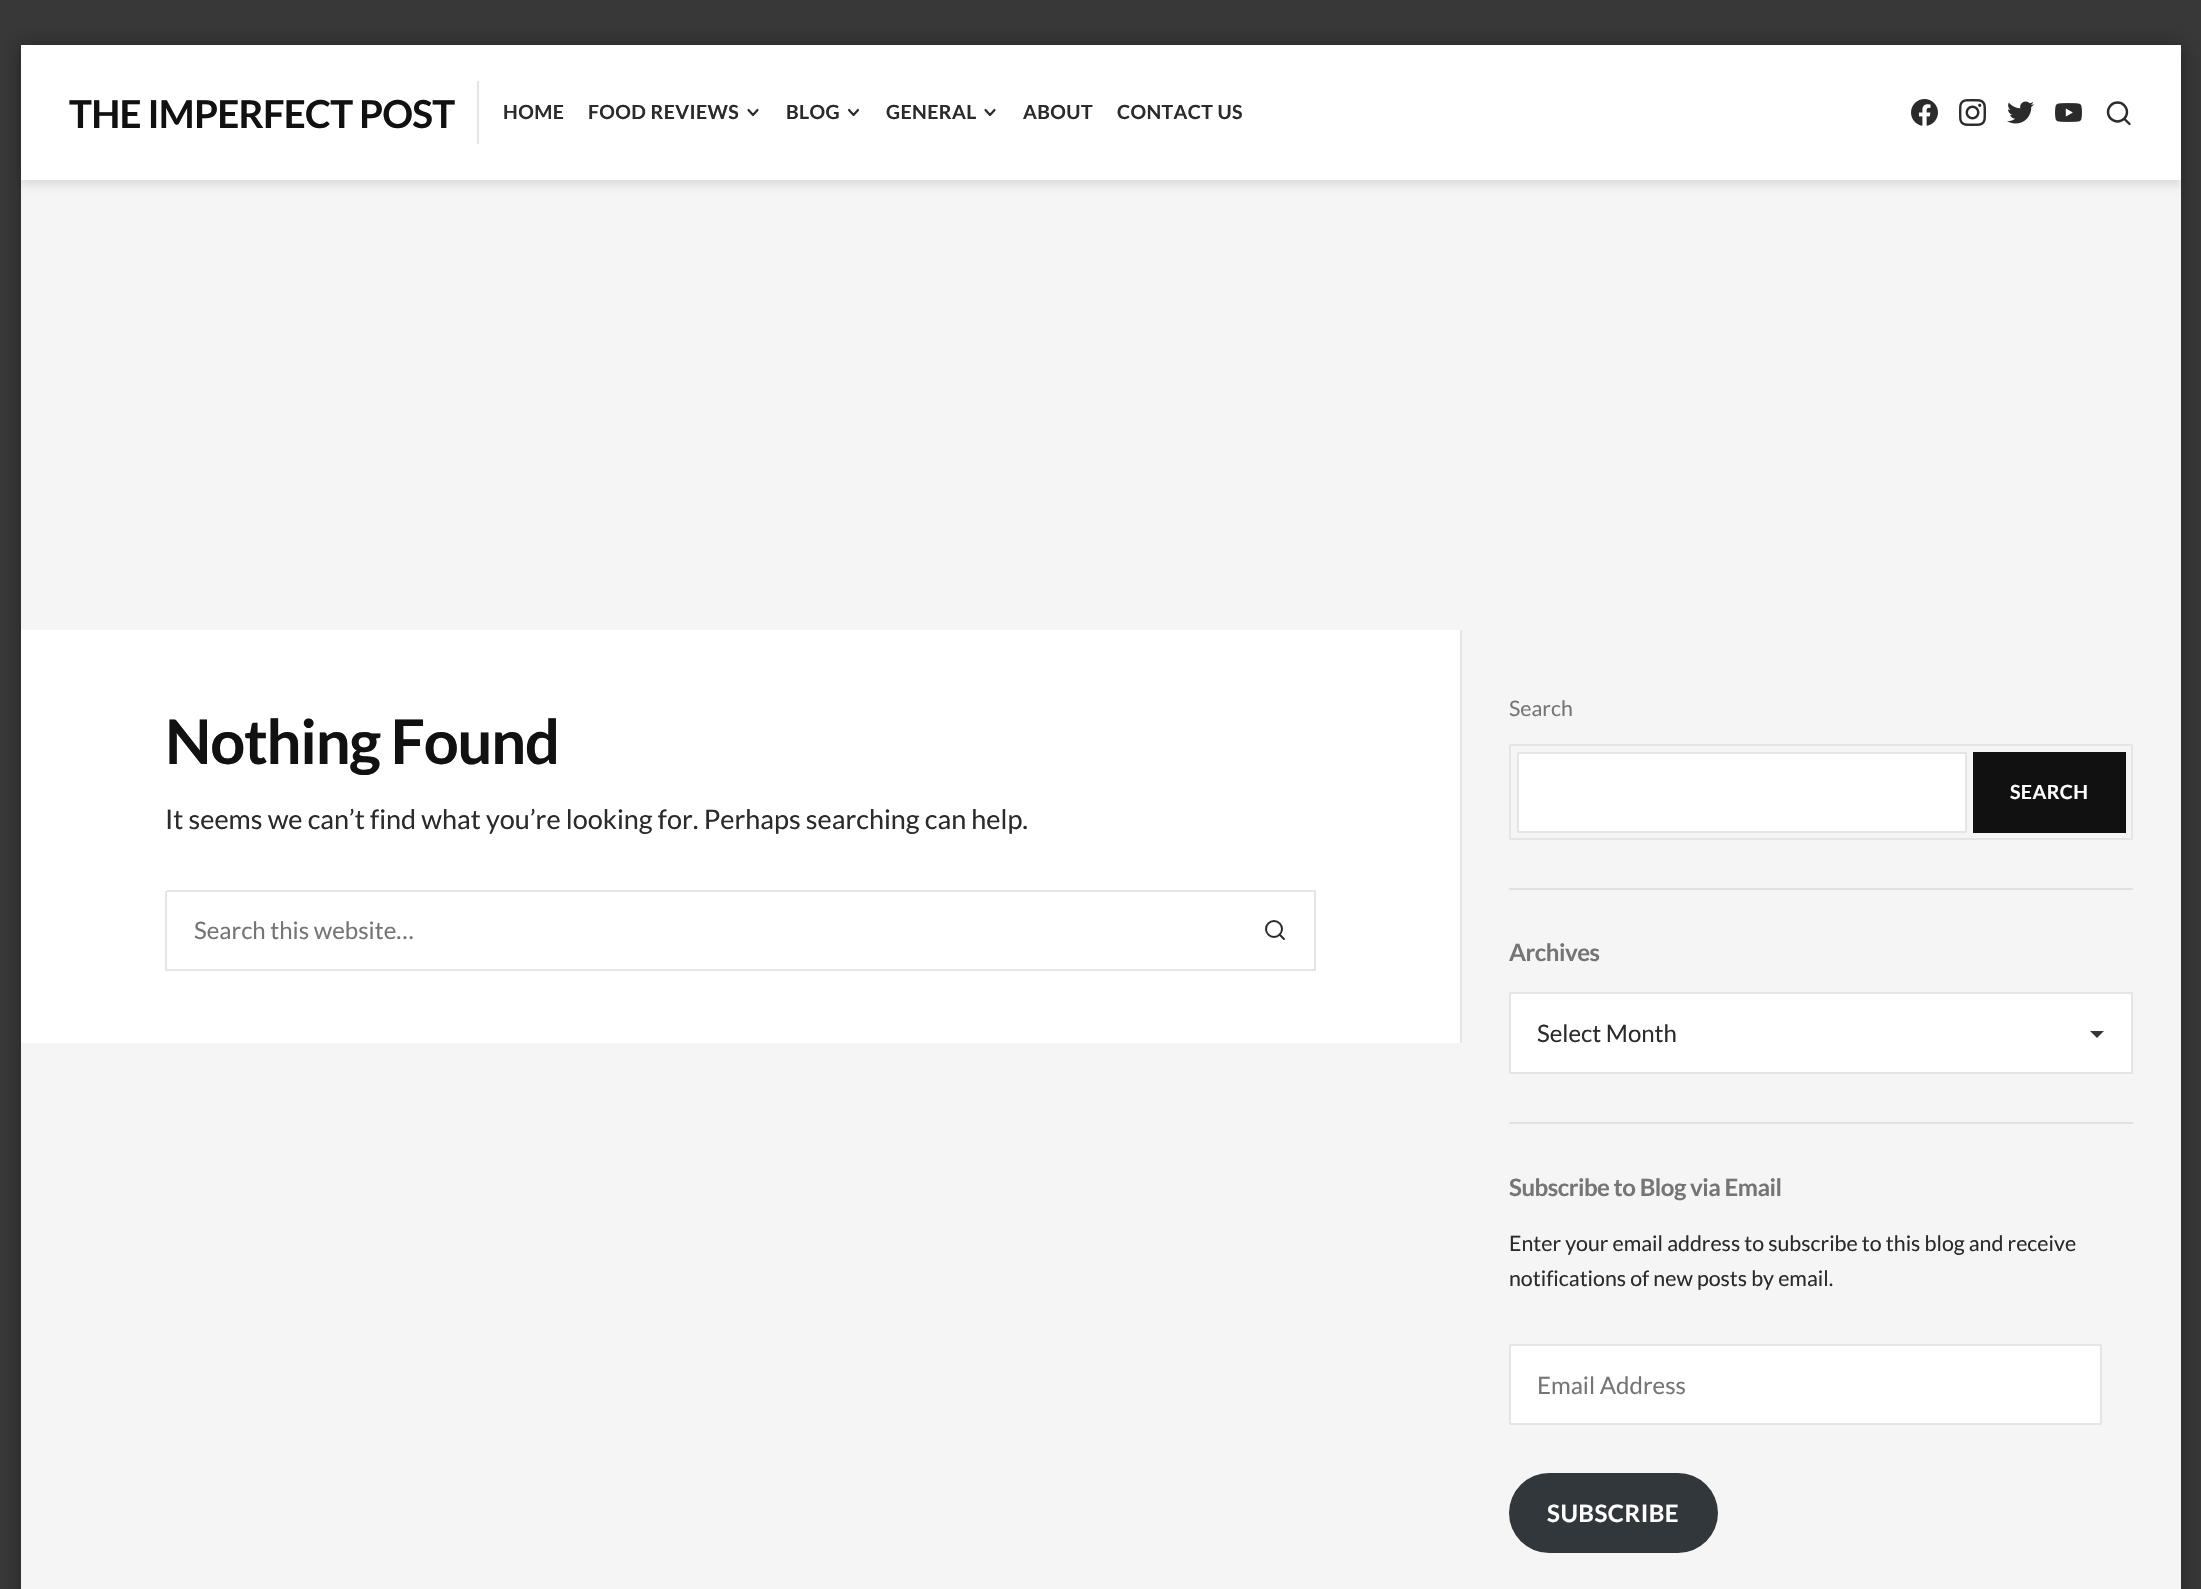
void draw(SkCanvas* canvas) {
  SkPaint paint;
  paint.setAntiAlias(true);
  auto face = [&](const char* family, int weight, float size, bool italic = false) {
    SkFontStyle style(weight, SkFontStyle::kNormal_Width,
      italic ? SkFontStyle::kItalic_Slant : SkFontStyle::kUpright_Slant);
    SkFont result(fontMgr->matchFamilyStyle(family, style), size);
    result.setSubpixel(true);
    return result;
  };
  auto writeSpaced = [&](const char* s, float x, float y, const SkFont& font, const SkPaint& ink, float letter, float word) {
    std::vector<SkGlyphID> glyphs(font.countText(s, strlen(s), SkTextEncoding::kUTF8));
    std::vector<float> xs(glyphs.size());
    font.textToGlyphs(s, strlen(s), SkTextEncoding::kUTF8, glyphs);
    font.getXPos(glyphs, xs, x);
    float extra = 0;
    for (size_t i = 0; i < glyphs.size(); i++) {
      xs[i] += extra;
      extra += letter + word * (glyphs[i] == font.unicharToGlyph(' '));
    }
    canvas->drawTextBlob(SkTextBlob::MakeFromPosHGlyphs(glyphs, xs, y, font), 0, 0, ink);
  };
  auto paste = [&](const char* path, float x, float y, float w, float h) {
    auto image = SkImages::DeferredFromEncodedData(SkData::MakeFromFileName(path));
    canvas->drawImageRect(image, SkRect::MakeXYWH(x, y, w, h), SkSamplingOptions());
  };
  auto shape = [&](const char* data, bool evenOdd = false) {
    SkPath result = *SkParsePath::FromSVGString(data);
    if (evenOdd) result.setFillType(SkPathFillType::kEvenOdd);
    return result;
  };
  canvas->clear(0xff383838);
  paint.setColor(0x4d000000);
  paint.setMaskFilter(SkMaskFilter::MakeBlur(kNormal_SkBlurStyle, 11));
  canvas->drawRect(SkRect::MakeXYWH(21, 45, 2160, 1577), paint);
  paint.setMaskFilter(nullptr);
  paint.setColor(0xffffffff);
  canvas->drawRect(SkRect::MakeXYWH(21, 45, 2160, 135), paint);
  paint.setColor(0xfff5f5f5);
  canvas->drawRect(SkRect::MakeXYWH(21, 180, 2160, 1409), paint);
  canvas->save();
  canvas->clipPath(shape("M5 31H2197V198H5ZM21 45H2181V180H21Z", true), true);
  paint.setColor(0x12000000);
  paint.setMaskFilter(SkMaskFilter::MakeBlur(kNormal_SkBlurStyle, 5));
  canvas->drawRect(SkRect::MakeXYWH(21, 47, 2160, 135), paint);
  paint.setMaskFilter(nullptr);
  canvas->restore();
  canvas->save();
  canvas->clipPath(shape("M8 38H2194V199H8ZM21 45H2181V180H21Z", true), true);
  paint.setColor(0x0d000000);
  paint.setMaskFilter(SkMaskFilter::MakeBlur(kNormal_SkBlurStyle, 4));
  canvas->drawRect(SkRect::MakeXYWH(21, 51, 2160, 135), paint);
  paint.setMaskFilter(nullptr);
  canvas->restore();
  paint.setColor(0xffe5e5e5);
  canvas->drawRect(SkRect::MakeXYWH(477, 81, 2, 63), paint);
  paint.setStroke(true);
  paint.setStrokeWidth(2.2f);
  paint.setStrokeCap(SkPaint::kRound_Cap);
  paint.setStrokeJoin(SkPaint::kRound_Join);
  paint.setColor(0xff2b2b2b);
  canvas->drawPath(shape("M748.5 110L753 115L757.5 110"), paint);
  canvas->drawPath(shape("M849 110L853.5 115L858 110"), paint);
  canvas->drawPath(shape("M985.5 110L990 115L994.5 110"), paint);
  paste("img/1.png", 1911, 99, 27, 27);
  paste("img/2.png", 1959, 99, 27, 27);
  paste("img/3.png", 2007, 101, 27, 23);
  paste("img/4.png", 2055, 103, 27, 19);
  paint.setStrokeWidth(2.4f);
  paint.setStrokeCap(SkPaint::kButt_Cap);
  paint.setStrokeJoin(SkPaint::kMiter_Join);
  canvas->drawCircle(2117.5f, 112, 9.5f, paint);
  paint.setStrokeCap(SkPaint::kRound_Cap);
  paint.setStrokeJoin(SkPaint::kRound_Join);
  canvas->drawPath(shape("M2129.5 124L2124.5 119"), paint);
  paint.setStroke(false);
  {
    const struct { float x, y, w, h; SkColor color; } items[] = {
      {21, 630, 1439, 413, 0xffffffff},
      {1460, 630, 2, 413, 0xffe5e5e5},
      {167, 890, 1149, 2, 0xffe5e5e5},
      {167, 969, 1069, 2, 0xffe5e5e5},
      {165, 891, 2, 80, 0xffe5e5e5},
      {1314, 890, 2, 81, 0xffe5e5e5},
      {1236, 969, 80, 2, 0xffe5e5e5},
    };
    for (auto [x, y, w, h, color] : items) {
      paint.setColor(color);
      canvas->drawRect(SkRect::MakeXYWH(x, y, w, h), paint);
    }
  }
  paint.setStroke(true);
  paint.setStrokeWidth(2);
  paint.setStrokeCap(SkPaint::kButt_Cap);
  paint.setStrokeJoin(SkPaint::kMiter_Join);
  paint.setColor(0xff2b2b2b);
  canvas->drawCircle(1274, 929, 8, paint);
  paint.setStrokeCap(SkPaint::kRound_Cap);
  paint.setStrokeJoin(SkPaint::kRound_Join);
  canvas->drawPath(shape("M1284 939L1279.5 934.5"), paint);
  paint.setStrokeCap(SkPaint::kButt_Cap);
  paint.setStrokeJoin(SkPaint::kMiter_Join);
  paint.setColor(0xffe5e5e5);
  canvas->drawRoundRect(SkRect::MakeXYWH(1510, 745, 622, 94), 0.5f, 0.5f, paint);
  paint.setStroke(false);
  paint.setColor(0xffffffff);
  canvas->drawRoundRect(SkRect::MakeXYWH(1518, 753, 448, 79), 0.5f, 0.5f, paint);
  paint.setStroke(true);
  paint.setColor(0xffe5e5e5);
  canvas->drawRoundRect(SkRect::MakeXYWH(1518, 753, 448, 79), 0.5f, 0.5f, paint);
  paint.setStroke(false);
  paint.setColor(0xff111111);
  canvas->drawRect(SkRect::MakeXYWH(1974.5f, 753.5f, 150, 78), paint);
  paint.setStroke(true);
  paint.setStrokeWidth(3);
  canvas->drawRect(SkRect::MakeXYWH(1974.5f, 753.5f, 150, 78), paint);
  paint.setStroke(false);
  paint.setColor(0xffe1e1e1);
  canvas->drawRect(SkRect::MakeXYWH(1509, 888, 624, 2), paint);
  paint.setColor(0xffffffff);
  canvas->drawRect(SkRect::MakeXYWH(1511, 994, 620, 78), paint);
  canvas->save();
  canvas->clipRect(SkRect::MakeXYWH(2090, 1031, 15, 15));
  paint.setColor(0xff353833);
  canvas->drawPath(shape("M2089.5 1030.5H2104.5L2097 1038Z"), paint);
  canvas->restore();
  paint.setStroke(true);
  paint.setStrokeWidth(2);
  paint.setColor(0xffe5e5e5);
  canvas->drawRect(SkRect::MakeXYWH(1510, 993, 622, 80), paint);
  paint.setStroke(false);
  paint.setColor(0xffe1e1e1);
  canvas->drawRect(SkRect::MakeXYWH(1509, 1122, 624, 2), paint);
  paint.setColor(0xffffffff);
  canvas->drawRoundRect(SkRect::MakeXYWH(1510, 1345, 591, 79), 0.5f, 0.5f, paint);
  paint.setStroke(true);
  paint.setColor(0xffe5e5e5);
  canvas->drawRoundRect(SkRect::MakeXYWH(1510, 1345, 591, 79), 0.5f, 0.5f, paint);
  paint.setStroke(false);
  paint.setColor(0xff32373c);
  canvas->drawRoundRect(SkRect::MakeXYWH(1509, 1473, 209, 80), 40, 40, paint);
  auto f0 = face("Lato", 700, 38.5f);
  paint.setColor(0xff111111);
  writeSpaced("THE IMPERFECT POST", 69, 128, f0, paint, -0.75f, 0);
  auto f1 = face("Lato", 700, 19.5f);
  paint.setColor(0xff2b2b2b);
  {
    const struct { const char* s; float x, y; } items[] = {
      {"HOME", 503, 119},
      {"FOOD REVIEWS", 588, 119},
      {"BLOG", 786, 119},
      {"GENERAL", 886, 119},
      {"ABOUT", 1023, 119},
      {"CONTACT US", 1117, 119},
    };
    for (auto [s, x, y] : items) {
      writeSpaced(s, x, y, f1, paint, 0.4f, 0);
    }
  }
  auto f2 = face("Lato", 700, 61.5f);
  paint.setColor(0xff111111);
  writeSpaced("Nothing Found", 165, 764, f2, paint, -1.25f, 0);
  auto f3 = face("Lato", 400, 27);
  paint.setColor(0xff2b2b2b);
  canvas->drawString("It seems we can’t find what you’re looking for. Perhaps searching can help.", 165, 829, f3, paint);
  auto f4 = face("Lato", 400, 24);
  paint.setColor(0xff757575);
  canvas->drawString("Search this website…", 194, 939, f4, paint);
  auto f5 = face("Lato", 400, 21.35f);
  canvas->drawString("Search", 1509, 716, f5, paint);
  paint.setColor(0xffffffff);
  writeSpaced("SEARCH", 2010, 799, f1, paint, 0.4f, 0);
  auto f6 = face("Lato", 700, 24);
  paint.setColor(0xff757575);
  writeSpaced("Archives", 1509, 961, f6, paint, -0.5f, 0);
  paint.setColor(0xff2b2b2b);
  canvas->drawString("Select Month", 1537, 1042, f4, paint);
  paint.setColor(0xff757575);
  writeSpaced("Subscribe to Blog via Email", 1509, 1196, f6, paint, -0.5f, 0);
  paint.setColor(0xff2b2b2b);
  canvas->drawString("Enter your email address to subscribe to this blog and receive", 1509, 1251, f5, paint);
  canvas->drawString("notifications of new posts by email.", 1509, 1286, f5, paint);
  paint.setColor(0xff757575);
  canvas->drawString("Email Address", 1537, 1394, f4, paint);
  paint.setColor(0xffffffff);
  writeSpaced("SUBSCRIBE", 1547, 1522, f6, paint, 0.5f, 0);
}
